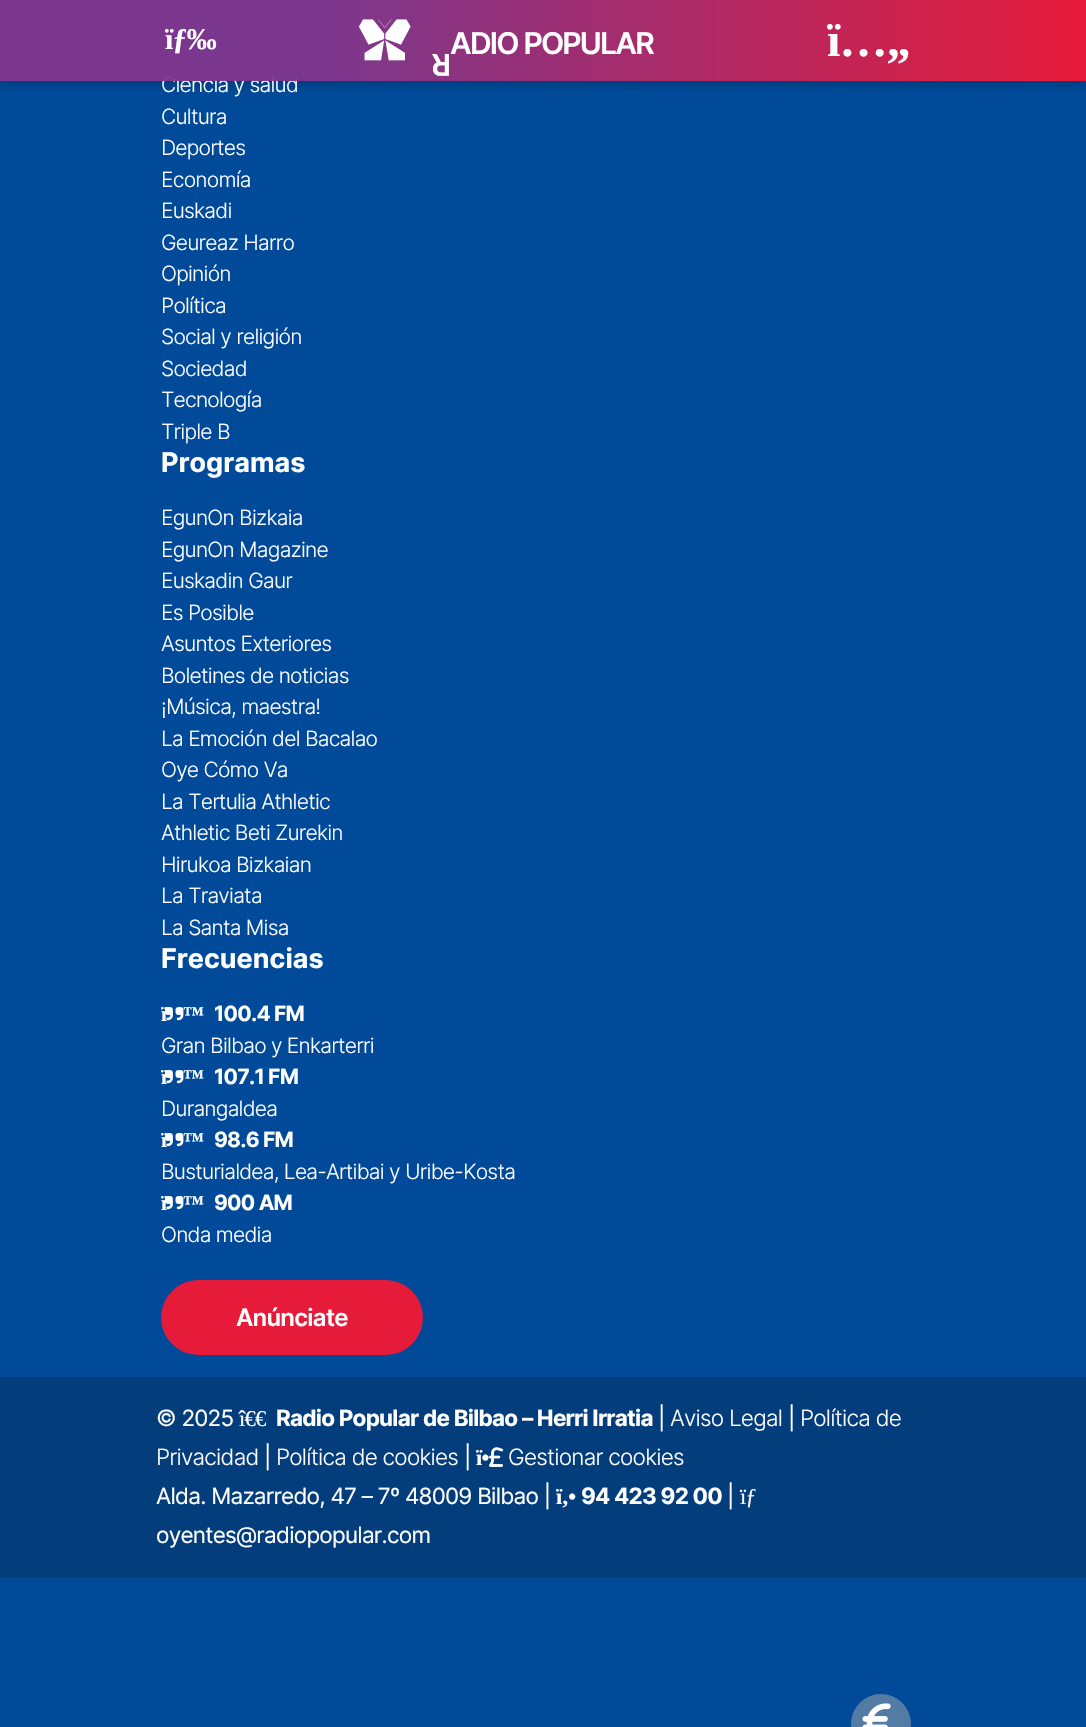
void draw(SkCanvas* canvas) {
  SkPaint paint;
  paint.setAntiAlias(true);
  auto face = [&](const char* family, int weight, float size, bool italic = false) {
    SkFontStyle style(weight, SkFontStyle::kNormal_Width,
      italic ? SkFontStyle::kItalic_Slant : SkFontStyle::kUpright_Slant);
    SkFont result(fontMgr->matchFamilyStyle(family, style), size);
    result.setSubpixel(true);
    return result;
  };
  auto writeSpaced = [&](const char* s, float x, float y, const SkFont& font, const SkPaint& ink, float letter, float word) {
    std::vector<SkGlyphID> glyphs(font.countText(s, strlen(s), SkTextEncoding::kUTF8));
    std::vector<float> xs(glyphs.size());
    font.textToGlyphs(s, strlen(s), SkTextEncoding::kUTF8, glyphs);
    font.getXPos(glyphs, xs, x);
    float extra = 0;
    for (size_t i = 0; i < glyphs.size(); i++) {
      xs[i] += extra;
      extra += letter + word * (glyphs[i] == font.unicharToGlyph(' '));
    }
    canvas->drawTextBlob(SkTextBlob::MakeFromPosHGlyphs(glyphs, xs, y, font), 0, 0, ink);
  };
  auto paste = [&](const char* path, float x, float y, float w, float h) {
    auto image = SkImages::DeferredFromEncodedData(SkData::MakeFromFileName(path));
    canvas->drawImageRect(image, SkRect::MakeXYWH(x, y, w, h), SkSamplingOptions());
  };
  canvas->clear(0xff004a99);
  canvas->save();
  canvas->clipRect(SkRect::MakeXYWH(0, 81, 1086, 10));
  paint.setColor(0x40000000);
  paint.setMaskFilter(SkMaskFilter::MakeBlur(kNormal_SkBlurStyle, 6));
  canvas->drawRect(SkRect::MakeXYWH(0, 0, 1086, 83), paint);
  paint.setMaskFilter(nullptr);
  canvas->restore();
  paste("img/2.png", 165, 1007, 19, 14);
  paste("img/2.png", 165, 1070, 19, 14);
  paste("img/2.png", 165, 1133, 19, 14);
  paste("img/2.png", 165, 1196, 19, 14);
  paint.setColor(0xffe61a39);
  canvas->drawRoundRect(SkRect::MakeXYWH(161, 1280, 262, 75), 37.5f, 37.5f, paint);
  paint.setColor(0xff033d7b);
  canvas->drawRect(SkRect::MakeXYWH(0, 1377, 1086, 201), paint);
  paste("img/3.png", 489, 1447, 15, 20);
  paint.setColor(0xff547ba4);
  canvas->drawCircle(881, 1724, 30, paint);
  paste("img/4.png", 862, 1703, 29, 24);
  auto f0 = face("Inter", 300, 21);
  paint.setColor(0xffffffff);
  writeSpaced("Ciencia y salud", 161, 92, f0, paint, -0.75f, 0);
  {
    const SkColor colors[] = {0xf282368c, 0xffe61a39};
    const float stops[] = {0.3f, 1};
    const SkPoint ends[] = {{0, 40}, {1086, 40}};
    paint.setShader(SkGradientShader::MakeLinear(ends, colors, stops, 2, SkTileMode::kClamp));
    paint.setAlpha(255);
  }
  canvas->drawRect(SkRect::MakeXYWH(0, 0, 1086, 81), paint);
  auto f1 = face("Inter", 600, 30);
  paint.setShader(nullptr);
  paint.setColor(0xffffffff);
  canvas->save();
  canvas->rotate(180, 451, 54);
  writeSpaced("R", 451, 54, f1, paint, -2, 0);
  canvas->restore();
  writeSpaced("ADIO POPULAR", 450, 54, f1, paint, -1.8f, 0);
  paste("img/1.png", 359, 19, 52, 42);
  auto f2 = face("Liberation Serif", 700, 48);
  writeSpaced("ï…„", 827, 56, f2, paint, -0.75f, 0);
  auto f3 = face("Liberation Serif", 700, 30);
  writeSpaced("ïƒ‰", 165, 49, f3, paint, -0.75f, 0);
  {
    const struct { const char* s; float x, y; } items[] = {
      {"Cultura", 161, 124},
      {"Deportes", 161, 155},
      {"Economía", 161, 187},
      {"Euskadi", 161, 218},
      {"Geureaz Harro", 161, 250},
      {"Opinión", 161, 281},
      {"Política", 161, 313},
      {"Social y religión", 161, 344},
      {"Sociedad", 161, 376},
      {"Tecnología", 161, 407},
      {"Triple B", 161, 439},
    };
    for (auto [s, x, y] : items) {
      writeSpaced(s, x, y, f0, paint, -0.75f, 0);
    }
  }
  auto f4 = face("Inter", 700, 27);
  canvas->drawString("Programas", 161, 472, f4, paint);
  {
    const struct { const char* s; float x, y; } items[] = {
      {"EgunOn Bizkaia", 161, 525},
      {"EgunOn Magazine", 161, 557},
      {"Euskadin Gaur", 161, 588},
      {"Es Posible", 161, 620},
      {"Asuntos Exteriores", 161, 651},
      {"Boletines de noticias", 161, 683},
      {"¡Música, maestra!", 161, 714},
      {"La Emoción del Bacalao", 161, 746},
      {"Oye Cómo Va", 161, 777},
      {"La Tertulia Athletic", 161, 809},
      {"Athletic Beti Zurekin", 161, 840},
      {"Hirukoa Bizkaian", 161, 872},
      {"La Traviata", 161, 903},
      {"La Santa Misa", 161, 935},
    };
    for (auto [s, x, y] : items) {
      writeSpaced(s, x, y, f0, paint, -0.75f, 0);
    }
  }
  canvas->drawString("Frecuencias", 161, 968, f4, paint);
  auto f5 = face("Liberation Serif", 700, 21);
  writeSpaced("ï", 161, 1021, f5, paint, -0.75f, 0);
  writeSpaced("™", 183, 1021, f5, paint, -0.75f, 0);
  auto f6 = face("Inter", 700, 21);
  writeSpaced("100.4 FM", 214, 1021, f6, paint, -0.75f, 0);
  writeSpaced("Gran Bilbao y Enkarterri", 161, 1053, f0, paint, -0.75f, 0);
  writeSpaced("ï", 161, 1084, f5, paint, -0.75f, 0);
  writeSpaced("™", 183, 1084, f5, paint, -0.75f, 0);
  writeSpaced("107.1 FM", 214, 1084, f6, paint, -0.75f, 0);
  writeSpaced("Durangaldea", 161, 1116, f0, paint, -0.75f, 0);
  writeSpaced("ï", 161, 1147, f5, paint, -0.75f, 0);
  writeSpaced("™", 183, 1147, f5, paint, -0.75f, 0);
  writeSpaced("98.6 FM", 214, 1147, f6, paint, -0.75f, 0);
  writeSpaced("Busturialdea, Lea-Artibai y Uribe-Kosta", 161, 1179, f0, paint, -0.75f, 0);
  writeSpaced("ï", 161, 1210, f5, paint, -0.75f, 0);
  writeSpaced("™", 183, 1210, f5, paint, -0.75f, 0);
  writeSpaced("900 AM", 214, 1210, f6, paint, -0.75f, 0);
  writeSpaced("Onda media", 161, 1242, f0, paint, -0.75f, 0);
  auto f7 = face("Inter", 600, 24);
  writeSpaced("Anúnciate", 236, 1326, f7, paint, -0.75f, 0);
  auto f8 = face("Inter", 400, 22.5f);
  writeSpaced("© 2025", 156, 1426, f8, paint, -0.75f, 0);
  auto f9 = face("Liberation Serif", 400, 22.5f);
  writeSpaced("î€€", 239, 1426, f9, paint, -0.75f, 0);
  auto f10 = face("Inter", 700, 22.5f);
  writeSpaced("Radio Popular de Bilbao – Herri Irratia", 276, 1426, f10, paint, -0.75f, 0);
  writeSpaced("|", 658, 1426, f8, paint, -0.75f, 0);
  auto f11 = face("Inter", 300, 22.5f);
  writeSpaced("Aviso Legal", 670, 1426, f11, paint, -0.75f, 0);
  writeSpaced("|", 788, 1426, f8, paint, -0.75f, 0);
  writeSpaced("Política de", 800, 1426, f11, paint, -0.75f, 0);
  writeSpaced("Privacidad", 156, 1465, f11, paint, -0.75f, 0);
  writeSpaced("|", 264, 1465, f8, paint, -0.75f, 0);
  writeSpaced("Política de cookies", 276, 1465, f11, paint, -0.75f, 0);
  writeSpaced("|", 464, 1465, f8, paint, -0.75f, 0);
  auto f12 = face("Liberation Serif", 700, 22.5f);
  writeSpaced("ï•", 476, 1465, f12, paint, -0.75f, 0);
  writeSpaced("Gestionar cookies", 508, 1465, f11, paint, -0.75f, 0);
  writeSpaced("Alda. Mazarredo, 47 – 7º 48009 Bilbao |", 156, 1504, f8, paint, -0.75f, 0);
  writeSpaced("ï‚•", 556, 1504, f12, paint, -0.75f, 0);
  writeSpaced("94 423 92 00", 581, 1504, f10, paint, -0.75f, 0);
  writeSpaced("|", 727, 1504, f8, paint, -0.75f, 0);
  writeSpaced("ïƒ", 740, 1504, f9, paint, -0.75f, 0);
  writeSpaced("oyentes@radiopopular.com", 156, 1543, f8, paint, -0.75f, 0);
}
